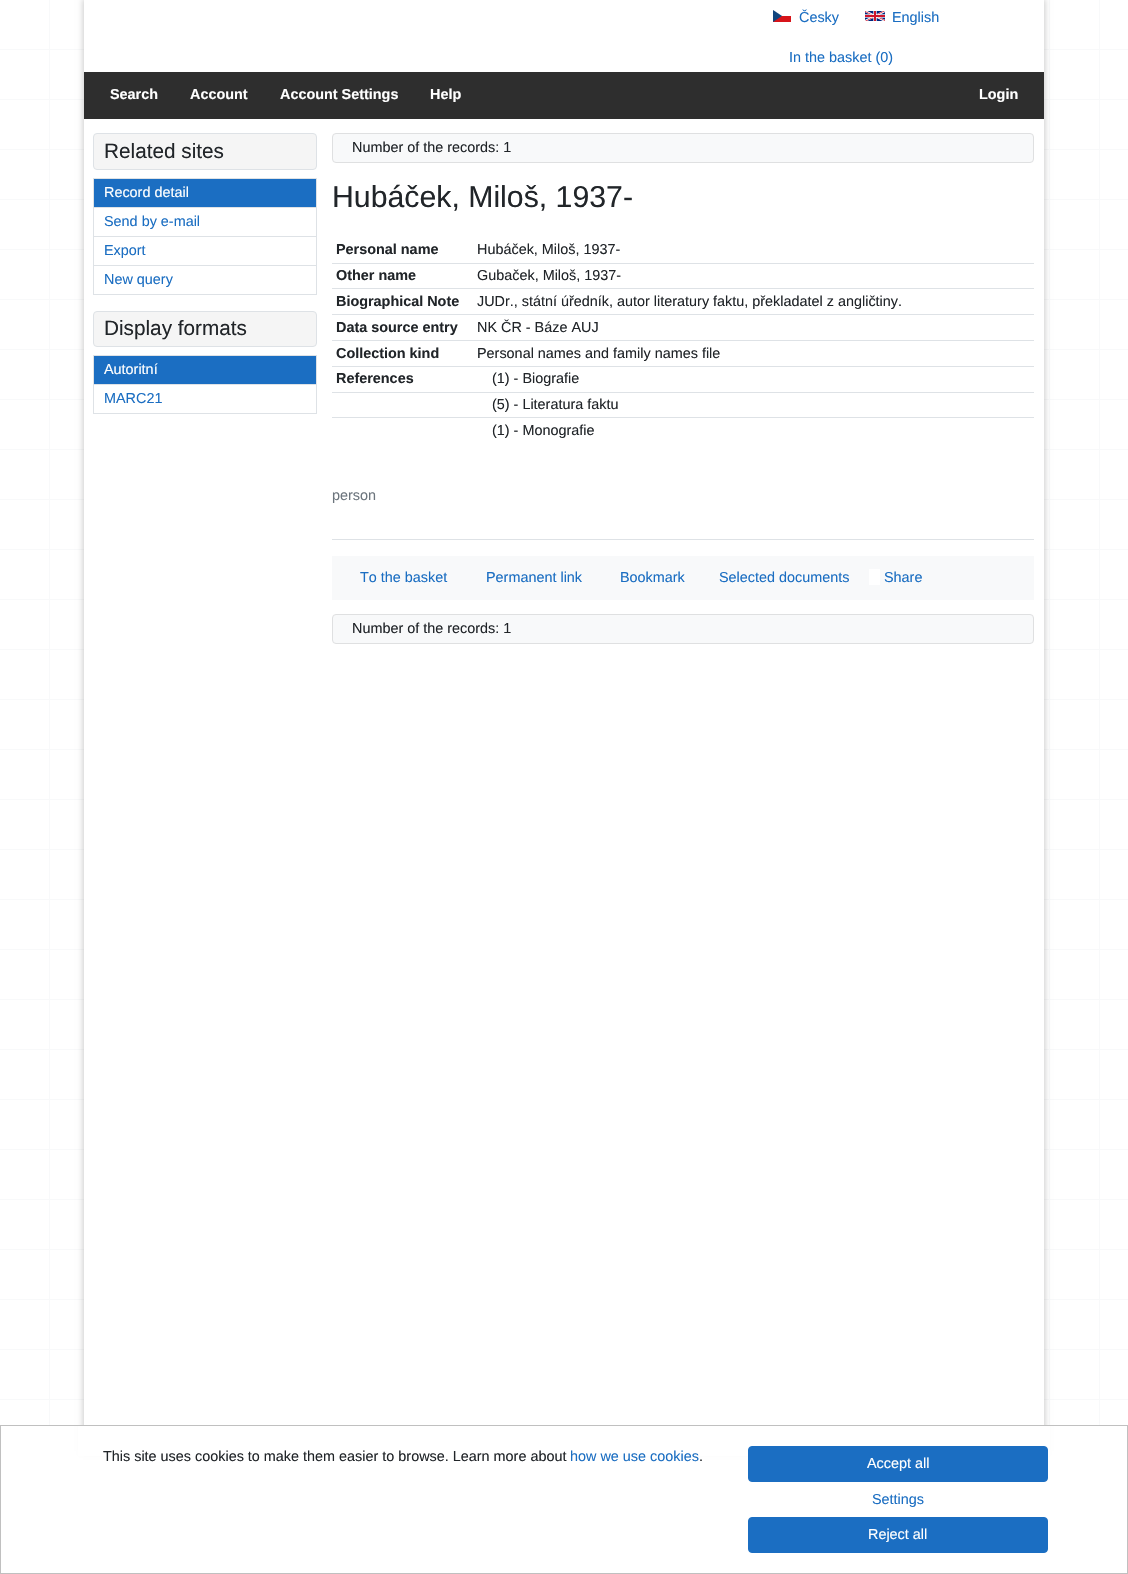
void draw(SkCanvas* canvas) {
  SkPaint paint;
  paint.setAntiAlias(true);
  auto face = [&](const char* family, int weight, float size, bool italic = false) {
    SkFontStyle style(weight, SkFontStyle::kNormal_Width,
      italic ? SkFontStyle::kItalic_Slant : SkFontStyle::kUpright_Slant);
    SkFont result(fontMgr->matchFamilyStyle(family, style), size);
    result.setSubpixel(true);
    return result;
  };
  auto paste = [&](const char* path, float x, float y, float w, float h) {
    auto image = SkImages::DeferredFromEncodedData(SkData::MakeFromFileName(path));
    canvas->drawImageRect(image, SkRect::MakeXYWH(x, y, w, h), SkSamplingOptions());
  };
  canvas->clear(0xffffffff);
  paste("img/1.png", 49, 0, 1051, 1425);
  paste("img/2.png", 0, 49, 1128, 1351);
  paint.setColor(0x33000000);
  paint.setMaskFilter(SkMaskFilter::MakeBlur(kNormal_SkBlurStyle, 3));
  canvas->drawRect(SkRect::MakeXYWH(83, -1, 962, 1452), paint);
  paint.setMaskFilter(nullptr);
  paint.setColor(0xffffffff);
  canvas->drawRect(SkRect::MakeXYWH(84, 0, 960, 1425), paint);
  paste("img/3.png", 773, 10, 18, 12);
  paste("img/4.png", 865, 11, 20, 10);
  paint.setColor(0xff2e2e2e);
  canvas->drawRect(SkRect::MakeXYWH(84, 72, 960, 47), paint);
  paint.setColor(0xfff5f5f5);
  canvas->drawRoundRect(SkRect::MakeXYWH(93.5f, 133.5f, 223, 36), 3.5f, 3.5f, paint);
  paint.setStroke(true);
  paint.setStrokeWidth(1);
  paint.setColor(0xffdee2e6);
  canvas->drawRoundRect(SkRect::MakeXYWH(93.5f, 133.5f, 223, 36), 3.5f, 3.5f, paint);
  paint.setStroke(false);
  {
    const struct { float x, y, w, h; SkColor color; } items[] = {
      {93, 178, 224, 1, 0xffdee2e6},
      {316, 178, 1, 29, 0xffdee2e6},
      {93, 178, 1, 29, 0xffdee2e6},
      {94, 179, 222, 28, 0xff1b6ec2},
      {93, 207, 224, 1, 0xffdee2e6},
      {316, 207, 1, 29, 0xffdee2e6},
      {93, 207, 1, 29, 0xffdee2e6},
      {93, 236, 224, 1, 0xffdee2e6},
      {316, 236, 1, 29, 0xffdee2e6},
      {93, 236, 1, 29, 0xffdee2e6},
    };
    for (auto [x, y, w, h, color] : items) {
      paint.setColor(color);
      canvas->drawRect(SkRect::MakeXYWH(x, y, w, h), paint);
    }
  }
  paint.setStroke(true);
  canvas->drawRect(SkRect::MakeXYWH(93.5f, 265.5f, 223, 29), paint);
  paint.setStroke(false);
  paint.setColor(0xfff5f5f5);
  canvas->drawRoundRect(SkRect::MakeXYWH(93.5f, 311.5f, 223, 35), 3.5f, 3.5f, paint);
  paint.setStroke(true);
  paint.setColor(0xffdee2e6);
  canvas->drawRoundRect(SkRect::MakeXYWH(93.5f, 311.5f, 223, 35), 3.5f, 3.5f, paint);
  paint.setStroke(false);
  {
    const struct { float x, y, w, h; SkColor color; } items[] = {
      {93, 355, 224, 1, 0xffdee2e6},
      {316, 355, 1, 29, 0xffdee2e6},
      {93, 355, 1, 29, 0xffdee2e6},
      {94, 356, 222, 28, 0xff1b6ec2},
    };
    for (auto [x, y, w, h, color] : items) {
      paint.setColor(color);
      canvas->drawRect(SkRect::MakeXYWH(x, y, w, h), paint);
    }
  }
  paint.setStroke(true);
  paint.setColor(0xffdee2e6);
  canvas->drawRect(SkRect::MakeXYWH(93.5f, 384.5f, 223, 29), paint);
  paint.setStroke(false);
  paint.setColor(0xfff8f9fa);
  canvas->drawRoundRect(SkRect::MakeXYWH(332.5f, 133.5f, 701, 29), 3.5f, 3.5f, paint);
  paint.setStroke(true);
  paint.setColor(0xffdfe0e1);
  canvas->drawRoundRect(SkRect::MakeXYWH(332.5f, 133.5f, 701, 29), 3.5f, 3.5f, paint);
  paint.setStroke(false);
  {
    const struct { float x, y, w, h; SkColor color; } items[] = {
      {332, 263, 702, 1, 0xffdee2e6},
      {332, 288, 702, 1, 0xffdee2e6},
      {332, 314, 702, 1, 0xffdee2e6},
      {332, 340, 702, 1, 0xffdee2e6},
      {332, 366, 702, 1, 0xffdee2e6},
      {332, 392, 702, 1, 0xffdee2e6},
      {332, 417, 702, 1, 0xffdee2e6},
      {332, 539, 702, 1, 0xffdee2e6},
      {332, 556, 702, 44, 0xfff8f9fa},
      {869, 569, 11, 16, 0xffffffff},
    };
    for (auto [x, y, w, h, color] : items) {
      paint.setColor(color);
      canvas->drawRect(SkRect::MakeXYWH(x, y, w, h), paint);
    }
  }
  paint.setColor(0xfff8f9fa);
  canvas->drawRoundRect(SkRect::MakeXYWH(332.5f, 614.5f, 701, 29), 3.5f, 3.5f, paint);
  paint.setStroke(true);
  paint.setColor(0xffdfe0e1);
  canvas->drawRoundRect(SkRect::MakeXYWH(332.5f, 614.5f, 701, 29), 3.5f, 3.5f, paint);
  paint.setStroke(false);
  paint.setColor(0xffffffff);
  canvas->drawRect(SkRect::MakeXYWH(78, 1426, 972, 30), paint);
  paint.setStroke(true);
  paint.setColor(0xffc0c0c0);
  canvas->drawRect(SkRect::MakeXYWH(0.5f, 1425.5f, 1127, 148), paint);
  paint.setStroke(false);
  paint.setColor(0xff1b6ec2);
  canvas->drawRoundRect(SkRect::MakeXYWH(748.5f, 1446.5f, 299, 35), 3.5f, 3.5f, paint);
  paint.setStroke(true);
  canvas->drawRoundRect(SkRect::MakeXYWH(748.5f, 1446.5f, 299, 35), 3.5f, 3.5f, paint);
  paint.setStroke(false);
  canvas->drawRoundRect(SkRect::MakeXYWH(748.5f, 1517.5f, 299, 35), 3.5f, 3.5f, paint);
  paint.setStroke(true);
  canvas->drawRoundRect(SkRect::MakeXYWH(748.5f, 1517.5f, 299, 35), 3.5f, 3.5f, paint);
  auto f0 = face("Liberation Sans", 400, 14.4f);
  paint.setStroke(false);
  {
    const struct { const char* s; float x, y; } items[] = {
      {"Česky", 799, 22},
      {"English", 892, 22},
      {"In the basket (0)", 789, 62},
    };
    for (auto [s, x, y] : items) {
      canvas->drawString(s, x, y, f0, paint);
    }
  }
  auto f1 = face("Liberation Sans", 700, 14.4f);
  paint.setColor(0xffffffff);
  {
    const struct { const char* s; float x, y; } items[] = {
      {"Search", 110, 99},
      {"Account", 190, 99},
      {"Account Settings", 280, 99},
      {"Help", 430, 99},
      {"Login", 979, 99},
    };
    for (auto [s, x, y] : items) {
      canvas->drawString(s, x, y, f1, paint);
    }
  }
  auto f2 = face("Liberation Sans", 400, 20.75f);
  paint.setColor(0xff212529);
  canvas->drawString("Related sites", 104, 158, f2, paint);
  paint.setColor(0xffffffff);
  canvas->drawString("Record detail", 104, 197, f0, paint);
  paint.setColor(0xff1b6ec2);
  {
    const struct { const char* s; float x, y; } items[] = {
      {"Send by e-mail", 104, 226},
      {"Export", 104, 255},
      {"New query", 104, 284},
    };
    for (auto [s, x, y] : items) {
      canvas->drawString(s, x, y, f0, paint);
    }
  }
  paint.setColor(0xff212529);
  canvas->drawString("Display formats", 104, 335, f2, paint);
  paint.setColor(0xffffffff);
  canvas->drawString("Autoritní", 104, 374, f0, paint);
  paint.setColor(0xff1b6ec2);
  canvas->drawString("MARC21", 104, 403, f0, paint);
  paint.setColor(0xff212529);
  canvas->drawString("Number of the records: 1", 352, 152, f0, paint);
  auto f3 = face("Liberation Sans", 400, 30.25f);
  canvas->drawString("Hubáček, Miloš, 1937-", 332, 207, f3, paint);
  canvas->drawString("Personal name", 336, 254, f1, paint);
  canvas->drawString("Hubáček, Miloš, 1937-", 477, 254, f0, paint);
  canvas->drawString("Other name", 336, 280, f1, paint);
  canvas->drawString("Gubaček, Miloš, 1937-", 477, 280, f0, paint);
  canvas->drawString("Biographical Note", 336, 306, f1, paint);
  canvas->drawString("JUDr., státní úředník, autor literatury faktu, překladatel z angličtiny.", 477, 306, f0, paint);
  canvas->drawString("Data source entry", 336, 332, f1, paint);
  canvas->drawString("NK ČR - Báze AUJ", 477, 332, f0, paint);
  canvas->drawString("Collection kind", 336, 358, f1, paint);
  canvas->drawString("Personal names and family names file", 477, 358, f0, paint);
  canvas->drawString("References", 336, 383, f1, paint);
  {
    const struct { const char* s; float x, y; } items[] = {
      {"(1) - Biografie", 492, 383},
      {"(5) - Literatura faktu", 492, 409},
      {"(1) - Monografie", 492, 435},
    };
    for (auto [s, x, y] : items) {
      canvas->drawString(s, x, y, f0, paint);
    }
  }
  paint.setColor(0xff6c757d);
  canvas->drawString("person", 332, 500, f0, paint);
  paint.setColor(0xff1b6ec2);
  {
    const struct { const char* s; float x, y; } items[] = {
      {"To the basket", 360, 582},
      {"Permanent link", 486, 582},
      {"Bookmark", 620, 582},
      {"Selected documents", 719, 582},
      {"Share", 884, 582},
    };
    for (auto [s, x, y] : items) {
      canvas->drawString(s, x, y, f0, paint);
    }
  }
  paint.setColor(0xff212529);
  canvas->drawString("Number of the records: 1", 352, 633, f0, paint);
  canvas->drawString("This site uses cookies to make them easier to browse. Learn more about", 103, 1461, f0, paint);
  paint.setColor(0xff1b6ec2);
  canvas->drawString("how we use cookies", 570, 1461, f0, paint);
  paint.setColor(0xff212529);
  canvas->drawString(".", 699, 1461, f0, paint);
  paint.setColor(0xffffffff);
  canvas->drawString("Accept all", 867, 1468, f0, paint);
  paint.setColor(0xff1b6ec2);
  canvas->drawString("Settings", 872, 1504, f0, paint);
  paint.setColor(0xffffffff);
  canvas->drawString("Reject all", 868, 1539, f0, paint);
}
